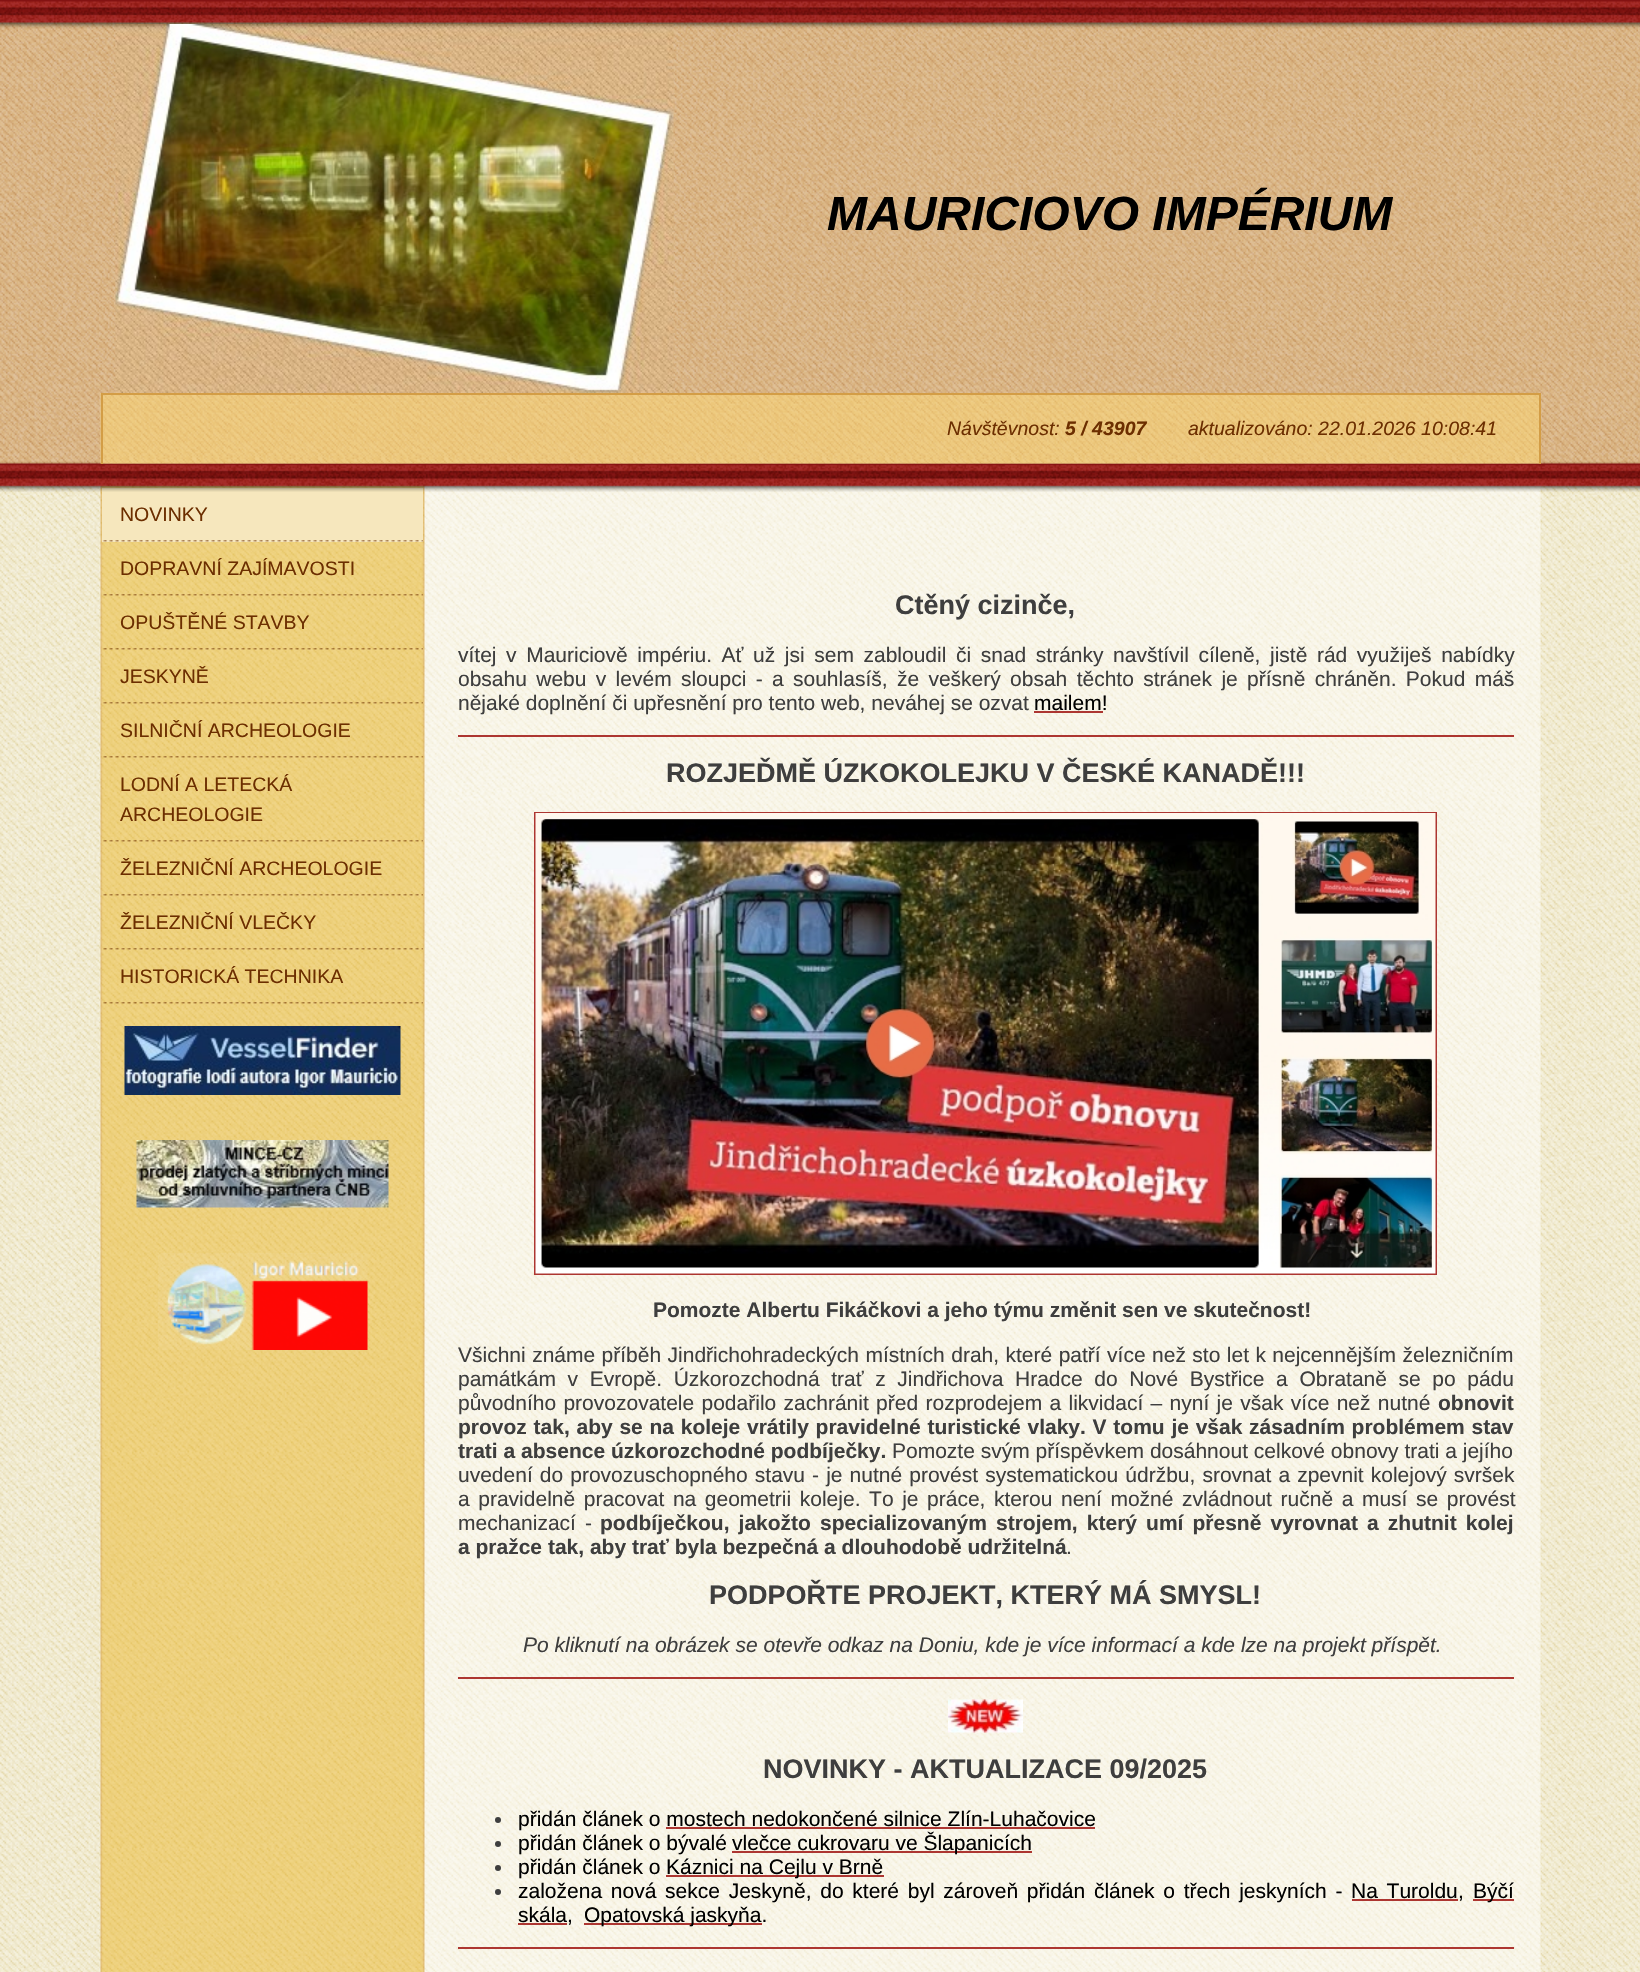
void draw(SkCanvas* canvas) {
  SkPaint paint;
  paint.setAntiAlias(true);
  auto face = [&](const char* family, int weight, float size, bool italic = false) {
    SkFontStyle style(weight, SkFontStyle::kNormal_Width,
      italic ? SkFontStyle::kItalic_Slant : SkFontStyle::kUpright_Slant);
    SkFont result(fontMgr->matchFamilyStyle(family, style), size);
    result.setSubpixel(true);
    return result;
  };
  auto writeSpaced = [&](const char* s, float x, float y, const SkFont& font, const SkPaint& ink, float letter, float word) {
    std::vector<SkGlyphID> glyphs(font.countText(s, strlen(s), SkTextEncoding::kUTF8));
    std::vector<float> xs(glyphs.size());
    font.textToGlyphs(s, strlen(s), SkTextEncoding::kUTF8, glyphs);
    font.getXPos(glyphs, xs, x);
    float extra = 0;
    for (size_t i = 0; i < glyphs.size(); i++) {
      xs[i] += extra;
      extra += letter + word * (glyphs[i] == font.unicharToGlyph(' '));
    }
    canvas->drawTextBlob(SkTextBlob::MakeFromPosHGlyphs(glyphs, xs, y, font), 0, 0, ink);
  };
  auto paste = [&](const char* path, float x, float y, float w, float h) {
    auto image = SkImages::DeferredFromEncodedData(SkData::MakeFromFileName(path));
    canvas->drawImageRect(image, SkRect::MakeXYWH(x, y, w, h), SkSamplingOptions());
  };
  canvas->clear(0xffffffff);
  paste("img/1.png", 0, 485, 1640, 1487);
  paste("img/2.png", 100, 485, 1441, 1487);
  paint.setColor(0xfff6e7bd);
  canvas->drawRect(SkRect::MakeXYWH(102, 488, 321, 54), paint);
  paste("img/3.png", 0, 0, 1640, 492);
  paste("img/4.png", 115, 24, 559, 369);
  paste("img/5.png", 100, 393, 1439, 71);
  {
    const struct { float x, y, w, h; SkColor color; } items[] = {
      {101, 393, 1440, 2, 0xffd39d46},
      {1539, 393, 2, 71, 0xffd39d46},
      {101, 393, 2, 71, 0xffd39d46},
    };
    for (auto [x, y, w, h, color] : items) {
      paint.setColor(color);
      canvas->drawRect(SkRect::MakeXYWH(x, y, w, h), paint);
    }
  }
  paste("img/6.png", 103, 540, 320, 2);
  paste("img/7.png", 103, 594, 320, 2);
  paste("img/8.png", 103, 648, 320, 2);
  paste("img/9.png", 103, 702, 320, 2);
  paste("img/10.png", 103, 756, 320, 2);
  paste("img/11.png", 103, 840, 320, 2);
  paste("img/12.png", 103, 894, 320, 2);
  paste("img/13.png", 103, 948, 320, 2);
  paste("img/14.png", 103, 1002, 320, 2);
  paste("img/15.png", 124, 1026, 277, 69);
  paste("img/16.png", 136, 1140, 253, 68);
  paste("img/17.png", 158, 1253, 210, 97);
  paint.setColor(0xffad3631);
  canvas->drawRect(SkRect::MakeXYWH(1034, 711, 69, 2), paint);
  canvas->drawRect(SkRect::MakeXYWH(458, 735, 1056, 2), paint);
  paint.setStroke(true);
  paint.setStrokeWidth(2);
  canvas->drawRect(SkRect::MakeXYWH(535, 813, 901, 461), paint);
  paste("img/18.png", 535, 813, 901, 461);
  paint.setStroke(false);
  canvas->drawRect(SkRect::MakeXYWH(458, 1677, 1056, 2), paint);
  paste("img/19.png", 948, 1699, 75, 34);
  paint.setColor(0xff3e3e3e);
  canvas->drawCircle(498, 1820, 3, paint);
  canvas->drawCircle(498, 1844, 3, paint);
  paint.setColor(0xffad3631);
  canvas->drawRect(SkRect::MakeXYWH(732, 1851, 300, 2), paint);
  paint.setColor(0xff3e3e3e);
  canvas->drawCircle(498, 1868, 3, paint);
  paint.setColor(0xffad3631);
  canvas->drawRect(SkRect::MakeXYWH(666, 1875, 218, 2), paint);
  paint.setColor(0xff3e3e3e);
  canvas->drawCircle(498, 1892, 3, paint);
  {
    const struct { float x, y, w, h; SkColor color; } items[] = {
      {1352, 1899, 106, 2, 0xffad3631},
      {1473, 1899, 41, 2, 0xffad3631},
      {518, 1923, 49, 2, 0xffad3631},
      {584, 1923, 178, 2, 0xffad3631},
      {458, 1947, 1056, 2, 0xffad3631},
    };
    for (auto [x, y, w, h, color] : items) {
      paint.setColor(color);
      canvas->drawRect(SkRect::MakeXYWH(x, y, w, h), paint);
    }
  }
  auto f0 = face("Liberation Sans", 700, 48, true);
  paint.setColor(0xff000000);
  canvas->drawString("MAURICIOVO IMPÉRIUM", 827, 230, f0, paint);
  auto f1 = face("Liberation Sans", 400, 19.5f, true);
  paint.setColor(0xff6c2e00);
  canvas->drawString("Návštěvnost:", 947, 435, f1, paint);
  auto f2 = face("Liberation Sans", 700, 19.5f, true);
  canvas->drawString("5 / 43907", 1065, 435, f2, paint);
  canvas->drawString("aktualizováno: 22.01.2026 10:08:41", 1188, 435, f1, paint);
  auto f3 = face("Liberation Sans", 400, 19.5f);
  {
    const struct { const char* s; float x, y; } items[] = {
      {"NOVINKY", 120, 521},
      {"DOPRAVNÍ ZAJÍMAVOSTI", 120, 575},
      {"OPUŠTĚNÉ STAVBY", 120, 629},
      {"JESKYNĚ", 120, 683},
      {"SILNIČNÍ ARCHEOLOGIE", 120, 737},
      {"LODNÍ A LETECKÁ", 120, 791},
      {"ARCHEOLOGIE", 120, 821},
      {"ŽELEZNIČNÍ ARCHEOLOGIE", 120, 875},
      {"ŽELEZNIČNÍ VLEČKY", 120, 929},
      {"HISTORICKÁ TECHNIKA", 120, 983},
    };
    for (auto [s, x, y] : items) {
      canvas->drawString(s, x, y, f3, paint);
    }
  }
  auto f4 = face("Liberation Sans", 700, 27);
  paint.setColor(0xff3e3e3e);
  canvas->drawString("Ctěný cizinče,", 895, 614, f4, paint);
  auto f5 = face("Liberation Sans", 400, 21);
  writeSpaced("vítej v Mauriciově impériu. Ať už jsi sem zabloudil či snad stránky navštívil cíleně, jistě rád využiješ nabídky", 458, 662, f5, paint, 0, 3.75f);
  writeSpaced("obsahu webu v levém sloupci - a souhlasíš, že veškerý obsah těchto stránek je přísně chráněn. Pokud máš", 458, 686, f5, paint, 0, 3.5f);
  canvas->drawString("nějaké doplnění či upřesnění pro tento web, neváhej se ozvat", 458, 710, f5, paint);
  paint.setColor(0xff000000);
  canvas->drawString("mailem!", 1034, 710, f5, paint);
  paint.setColor(0xff3e3e3e);
  canvas->drawString("ROZJEĎMĚ ÚZKOKOLEJKU V ČESKÉ KANADĚ!!!", 666, 782, f4, paint);
  auto f6 = face("Liberation Sans", 700, 21);
  canvas->drawString("Pomozte Albertu Fikáčkovi a jeho týmu změnit sen ve skutečnost!", 653, 1317, f6, paint);
  writeSpaced("Všichni známe příběh Jindřichohradeckých místních drah, které patří více než sto let k nejcennějším železničním", 458, 1362, f5, paint, 0, 0.6f);
  writeSpaced("památkám v Evropě. Úzkorozchodná trať z Jindřichova Hradce do Nové Bystřice a Obrataně se po pádu", 458, 1386, f5, paint, 0, 5.75f);
  writeSpaced("původního provozovatele podařilo zachránit před rozprodejem a likvidací – nyní je však více než nutné", 458, 1410, f5, paint, 0, 1.5f);
  canvas->drawString("obnovit", 1438, 1410, f6, paint);
  writeSpaced("provoz tak, aby se na koleje vrátily pravidelné turistické vlaky. V tomu je však zásadním problémem stav", 458, 1434, f6, paint, 0, 0.9f);
  canvas->drawString("trati a absence úzkorozchodné podbíječky.", 458, 1458, f6, paint);
  canvas->drawString("Pomozte svým příspěvkem dosáhnout celkové obnovy trati a jejího", 892, 1458, f5, paint);
  writeSpaced("uvedení do provozuschopného stavu - je nutné provést systematickou údržbu, srovnat a zpevnit kolejový svršek", 458, 1482, f5, paint, 0, 1.25f);
  writeSpaced("a pravidelně pracovat na geometrii koleje. To je práce, kterou není možné zvládnout ručně a musí se provést", 458, 1506, f5, paint, 0, 2.75f);
  writeSpaced("mechanizací -", 458, 1530, f5, paint, 0, 3.25f);
  writeSpaced("podbíječkou, jakožto specializovaným strojem, který umí přesně vyrovnat a zhutnit kolej", 600, 1530, f6, paint, 0, 3.25f);
  canvas->drawString("a pražce tak, aby trať byla bezpečná a dlouhodobě udržitelná", 458, 1554, f6, paint);
  canvas->drawString(".", 1066, 1554, f5, paint);
  canvas->drawString("PODPOŘTE PROJEKT, KTERÝ MÁ SMYSL!", 709, 1604, f4, paint);
  auto f7 = face("Liberation Sans", 400, 21, true);
  canvas->drawString("Po kliknutí na obrázek se otevře odkaz na Doniu, kde je více informací a kde lze na projekt příspět.", 523, 1652, f7, paint);
  canvas->drawString("NOVINKY - AKTUALIZACE 09/2025", 763, 1778, f4, paint);
  paint.setColor(0xff000000);
  canvas->drawString("přidán článek o mostech nedokončené silnice Zlín-Luhačovice", 518, 1826, f5, paint);
  paint.setColor(0xffad3631);
  canvas->drawRect(SkRect::MakeXYWH(666, 1827, 429, 2), paint);
  paint.setColor(0xff000000);
  {
    const struct { const char* s; float x, y; } items[] = {
      {"přidán článek o bývalé", 518, 1850},
      {"vlečce cukrovaru ve Šlapanicích", 732, 1850},
      {"přidán článek o", 518, 1874},
      {"Káznici na Cejlu v Brně", 666, 1874},
    };
    for (auto [s, x, y] : items) {
      canvas->drawString(s, x, y, f5, paint);
    }
  }
  writeSpaced("založena nová sekce Jeskyně, do které byl zároveň přidán článek o třech jeskyních -", 518, 1898, f5, paint, 0, 2.9f);
  writeSpaced("Na Turoldu", 1351, 1898, f5, paint, 0, 2.9f);
  {
    const struct { const char* s; float x, y; } items[] = {
      {"Býčí", 1473, 1898},
      {",", 1458, 1898},
      {"skála,", 518, 1922},
      {"Opatovská jaskyňa.", 584, 1922},
    };
    for (auto [s, x, y] : items) {
      canvas->drawString(s, x, y, f5, paint);
    }
  }
}
